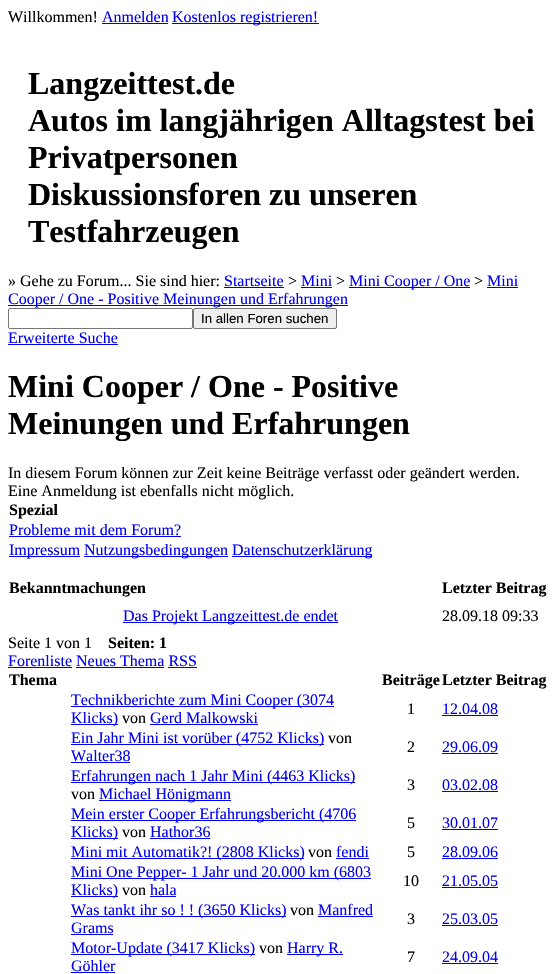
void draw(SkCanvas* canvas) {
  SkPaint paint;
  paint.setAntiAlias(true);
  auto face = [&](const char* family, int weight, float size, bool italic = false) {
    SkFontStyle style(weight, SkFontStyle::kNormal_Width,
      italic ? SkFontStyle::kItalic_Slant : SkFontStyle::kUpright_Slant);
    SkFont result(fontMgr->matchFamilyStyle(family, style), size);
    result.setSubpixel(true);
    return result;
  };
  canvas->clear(0xffffffff);
  {
    const struct { float x, y, w, h; SkColor color; } items[] = {
      {102, 23, 66, 1, 0xff0000ee},
      {172, 23, 147, 1, 0xff0000ee},
      {224, 287, 60, 1, 0xff0000ee},
      {301, 287, 31, 1, 0xff0000ee},
      {349, 287, 121, 1, 0xff0000ee},
      {487, 287, 31, 1, 0xff0000ee},
      {8, 305, 340, 1, 0xff0000ee},
    };
    for (auto [x, y, w, h, color] : items) {
      paint.setColor(color);
      canvas->drawRect(SkRect::MakeXYWH(x, y, w, h), paint);
    }
  }
  paint.setStroke(true);
  paint.setStrokeWidth(1);
  paint.setColor(0xff767676);
  canvas->drawRoundRect(SkRect::MakeXYWH(8.5f, 308.5f, 184, 20), 1.5f, 1.5f, paint);
  paint.setStroke(false);
  paint.setColor(0xffefefef);
  canvas->drawRoundRect(SkRect::MakeXYWH(193.5f, 308.5f, 143, 20), 1.5f, 1.5f, paint);
  paint.setStroke(true);
  paint.setColor(0xff767676);
  canvas->drawRoundRect(SkRect::MakeXYWH(193.5f, 308.5f, 143, 20), 1.5f, 1.5f, paint);
  paint.setStroke(false);
  {
    const struct { float x, y, w, h; SkColor color; } items[] = {
      {8, 344, 110, 1, 0xff0000ee},
      {9, 536, 172, 1, 0xff0000ee},
      {9, 556, 71, 1, 0xff0000ee},
      {84, 556, 144, 1, 0xff0000ee},
      {232, 556, 140, 1, 0xff0000ee},
      {123, 622, 215, 1, 0xff0000ee},
      {8, 667, 64, 1, 0xff0000ee},
      {76, 667, 88, 1, 0xff0000ee},
      {168, 667, 29, 1, 0xff0000ee},
      {71, 706, 263, 1, 0xff0000ee},
      {71, 724, 47, 1, 0xff0000ee},
      {150, 724, 108, 1, 0xff0000ee},
      {442, 715, 56, 1, 0xff0000ee},
      {71, 744, 253, 1, 0xff0000ee},
      {71, 762, 59, 1, 0xff0000ee},
      {442, 753, 56, 1, 0xff0000ee},
      {71, 782, 284, 1, 0xff0000ee},
      {99, 800, 132, 1, 0xff0000ee},
      {442, 791, 56, 1, 0xff0000ee},
      {71, 820, 285, 1, 0xff0000ee},
      {71, 838, 47, 1, 0xff0000ee},
      {150, 838, 60, 1, 0xff0000ee},
      {442, 829, 56, 1, 0xff0000ee},
      {71, 858, 233, 1, 0xff0000ee},
      {336, 858, 33, 1, 0xff0000ee},
      {442, 858, 56, 1, 0xff0000ee},
      {71, 878, 300, 1, 0xff0000ee},
      {71, 896, 47, 1, 0xff0000ee},
      {150, 896, 26, 1, 0xff0000ee},
      {442, 887, 56, 1, 0xff0000ee},
      {71, 916, 215, 1, 0xff0000ee},
      {318, 916, 55, 1, 0xff0000ee},
      {71, 934, 42, 1, 0xff0000ee},
      {442, 925, 56, 1, 0xff0000ee},
      {71, 954, 184, 1, 0xff0000ee},
      {287, 954, 56, 1, 0xff0000ee},
      {71, 972, 44, 1, 0xff0000ee},
      {442, 963, 56, 1, 0xff0000ee},
    };
    for (auto [x, y, w, h, color] : items) {
      paint.setColor(color);
      canvas->drawRect(SkRect::MakeXYWH(x, y, w, h), paint);
    }
  }
  auto f0 = face("Liberation Serif", 400, 16);
  paint.setColor(0xff000000);
  canvas->drawString("Willkommen!", 8, 22, f0, paint);
  paint.setColor(0xff0000ee);
  canvas->drawString("Anmelden", 102, 22, f0, paint);
  canvas->drawString("Kostenlos registrieren!", 172, 22, f0, paint);
  auto f1 = face("Liberation Serif", 700, 32);
  paint.setColor(0xff000000);
  {
    const struct { const char* s; float x, y; } items[] = {
      {"Langzeittest.de", 28, 94},
      {"Autos im langjährigen Alltagstest bei", 28, 131},
      {"Privatpersonen", 28, 168},
      {"Diskussionsforen zu unseren", 28, 205},
      {"Testfahrzeugen", 28, 242},
    };
    for (auto [s, x, y] : items) {
      canvas->drawString(s, x, y, f1, paint);
    }
  }
  canvas->drawString("» Gehe zu Forum... Sie sind hier:", 8, 286, f0, paint);
  paint.setColor(0xff0000ee);
  canvas->drawString("Startseite", 224, 286, f0, paint);
  paint.setColor(0xff000000);
  canvas->drawString(">", 288, 286, f0, paint);
  paint.setColor(0xff0000ee);
  canvas->drawString("Mini", 301, 286, f0, paint);
  paint.setColor(0xff000000);
  canvas->drawString(">", 336, 286, f0, paint);
  paint.setColor(0xff0000ee);
  canvas->drawString("Mini Cooper / One", 349, 286, f0, paint);
  paint.setColor(0xff000000);
  canvas->drawString(">", 474, 286, f0, paint);
  paint.setColor(0xff0000ee);
  canvas->drawString("Mini", 487, 286, f0, paint);
  canvas->drawString("Cooper / One - Positive Meinungen und Erfahrungen", 8, 304, f0, paint);
  auto f2 = face("Liberation Sans", 400, 13.25f);
  paint.setColor(0xff000000);
  canvas->drawString("In allen Foren suchen", 201, 323, f2, paint);
  paint.setColor(0xff0000ee);
  canvas->drawString("Erweiterte Suche", 8, 343, f0, paint);
  paint.setColor(0xff000000);
  canvas->drawString("Mini Cooper / One - Positive", 8, 397, f1, paint);
  canvas->drawString("Meinungen und Erfahrungen", 8, 434, f1, paint);
  canvas->drawString("In diesem Forum können zur Zeit keine Beiträge verfasst oder geändert werden.", 8, 478, f0, paint);
  canvas->drawString("Eine Anmeldung ist ebenfalls nicht möglich.", 8, 496, f0, paint);
  auto f3 = face("Liberation Serif", 700, 16);
  canvas->drawString("Spezial", 9, 515, f3, paint);
  paint.setColor(0xff0000ee);
  {
    const struct { const char* s; float x, y; } items[] = {
      {"Probleme mit dem Forum?", 9, 535},
      {"Impressum", 9, 555},
      {"Nutzungsbedingungen", 84, 555},
      {"Datenschutzerklärung", 232, 555},
    };
    for (auto [s, x, y] : items) {
      canvas->drawString(s, x, y, f0, paint);
    }
  }
  paint.setColor(0xff000000);
  canvas->drawString("Bekanntmachungen", 9, 593, f3, paint);
  canvas->drawString("Letzter Beitrag", 442, 593, f3, paint);
  paint.setColor(0xff0000ee);
  canvas->drawString("Das Projekt Langzeittest.de endet", 123, 621, f0, paint);
  paint.setColor(0xff000000);
  canvas->drawString("28.09.18 09:33", 442, 621, f0, paint);
  canvas->drawString("Seite 1 von 1", 8, 648, f0, paint);
  canvas->drawString("Seiten: 1", 108, 648, f3, paint);
  paint.setColor(0xff0000ee);
  canvas->drawString("Forenliste Neues Thema RSS", 8, 666, f0, paint);
  paint.setColor(0xff000000);
  {
    const struct { const char* s; float x, y; } items[] = {
      {"Thema", 9, 685},
      {"Beiträge", 382, 685},
      {"Letzter Beitrag", 442, 685},
    };
    for (auto [s, x, y] : items) {
      canvas->drawString(s, x, y, f3, paint);
    }
  }
  paint.setColor(0xff0000ee);
  canvas->drawString("Technikberichte zum Mini Cooper (3074", 71, 705, f0, paint);
  canvas->drawString("Klicks)", 71, 723, f0, paint);
  paint.setColor(0xff000000);
  canvas->drawString("von", 122, 723, f0, paint);
  paint.setColor(0xff0000ee);
  canvas->drawString("Gerd Malkowski", 150, 723, f0, paint);
  paint.setColor(0xff000000);
  canvas->drawString("1", 407, 714, f0, paint);
  paint.setColor(0xff0000ee);
  canvas->drawString("12.04.08", 442, 714, f0, paint);
  canvas->drawString("Ein Jahr Mini ist vorüber (4752 Klicks)", 71, 743, f0, paint);
  paint.setColor(0xff000000);
  canvas->drawString("von", 328, 743, f0, paint);
  paint.setColor(0xff0000ee);
  canvas->drawString("Walter38", 71, 761, f0, paint);
  paint.setColor(0xff000000);
  canvas->drawString("2", 407, 752, f0, paint);
  paint.setColor(0xff0000ee);
  canvas->drawString("29.06.09", 442, 752, f0, paint);
  canvas->drawString("Erfahrungen nach 1 Jahr Mini (4463 Klicks)", 71, 781, f0, paint);
  paint.setColor(0xff000000);
  canvas->drawString("von", 71, 799, f0, paint);
  paint.setColor(0xff0000ee);
  canvas->drawString("Michael Hönigmann", 99, 799, f0, paint);
  paint.setColor(0xff000000);
  canvas->drawString("3", 407, 790, f0, paint);
  paint.setColor(0xff0000ee);
  {
    const struct { const char* s; float x, y; } items[] = {
      {"03.02.08", 442, 790},
      {"Mein erster Cooper Erfahrungsbericht (4706", 71, 819},
      {"Klicks)", 71, 837},
    };
    for (auto [s, x, y] : items) {
      canvas->drawString(s, x, y, f0, paint);
    }
  }
  paint.setColor(0xff000000);
  canvas->drawString("von", 122, 837, f0, paint);
  paint.setColor(0xff0000ee);
  canvas->drawString("Hathor36", 150, 837, f0, paint);
  paint.setColor(0xff000000);
  canvas->drawString("5", 407, 828, f0, paint);
  paint.setColor(0xff0000ee);
  canvas->drawString("30.01.07", 442, 828, f0, paint);
  canvas->drawString("Mini mit Automatik?! (2808 Klicks)", 71, 857, f0, paint);
  paint.setColor(0xff000000);
  canvas->drawString("von", 308, 857, f0, paint);
  paint.setColor(0xff0000ee);
  canvas->drawString("fendi", 336, 857, f0, paint);
  paint.setColor(0xff000000);
  canvas->drawString("5", 407, 857, f0, paint);
  paint.setColor(0xff0000ee);
  {
    const struct { const char* s; float x, y; } items[] = {
      {"28.09.06", 442, 857},
      {"Mini One Pepper- 1 Jahr und 20.000 km (6803", 71, 877},
      {"Klicks)", 71, 895},
    };
    for (auto [s, x, y] : items) {
      canvas->drawString(s, x, y, f0, paint);
    }
  }
  paint.setColor(0xff000000);
  canvas->drawString("von", 122, 895, f0, paint);
  paint.setColor(0xff0000ee);
  canvas->drawString("hala", 150, 895, f0, paint);
  paint.setColor(0xff000000);
  canvas->drawString("10", 403, 886, f0, paint);
  paint.setColor(0xff0000ee);
  canvas->drawString("21.05.05", 442, 886, f0, paint);
  canvas->drawString("Was tankt ihr so ! ! (3650 Klicks)", 71, 915, f0, paint);
  paint.setColor(0xff000000);
  canvas->drawString("von", 290, 915, f0, paint);
  paint.setColor(0xff0000ee);
  canvas->drawString("Manfred", 318, 915, f0, paint);
  canvas->drawString("Grams", 71, 933, f0, paint);
  paint.setColor(0xff000000);
  canvas->drawString("3", 407, 924, f0, paint);
  paint.setColor(0xff0000ee);
  canvas->drawString("25.03.05", 442, 924, f0, paint);
  canvas->drawString("Motor-Update (3417 Klicks)", 71, 953, f0, paint);
  paint.setColor(0xff000000);
  canvas->drawString("von", 259, 953, f0, paint);
  paint.setColor(0xff0000ee);
  canvas->drawString("Harry R.", 287, 953, f0, paint);
  canvas->drawString("Göhler", 71, 971, f0, paint);
  paint.setColor(0xff000000);
  canvas->drawString("7", 407, 962, f0, paint);
  paint.setColor(0xff0000ee);
  canvas->drawString("24.09.04", 442, 962, f0, paint);
}
